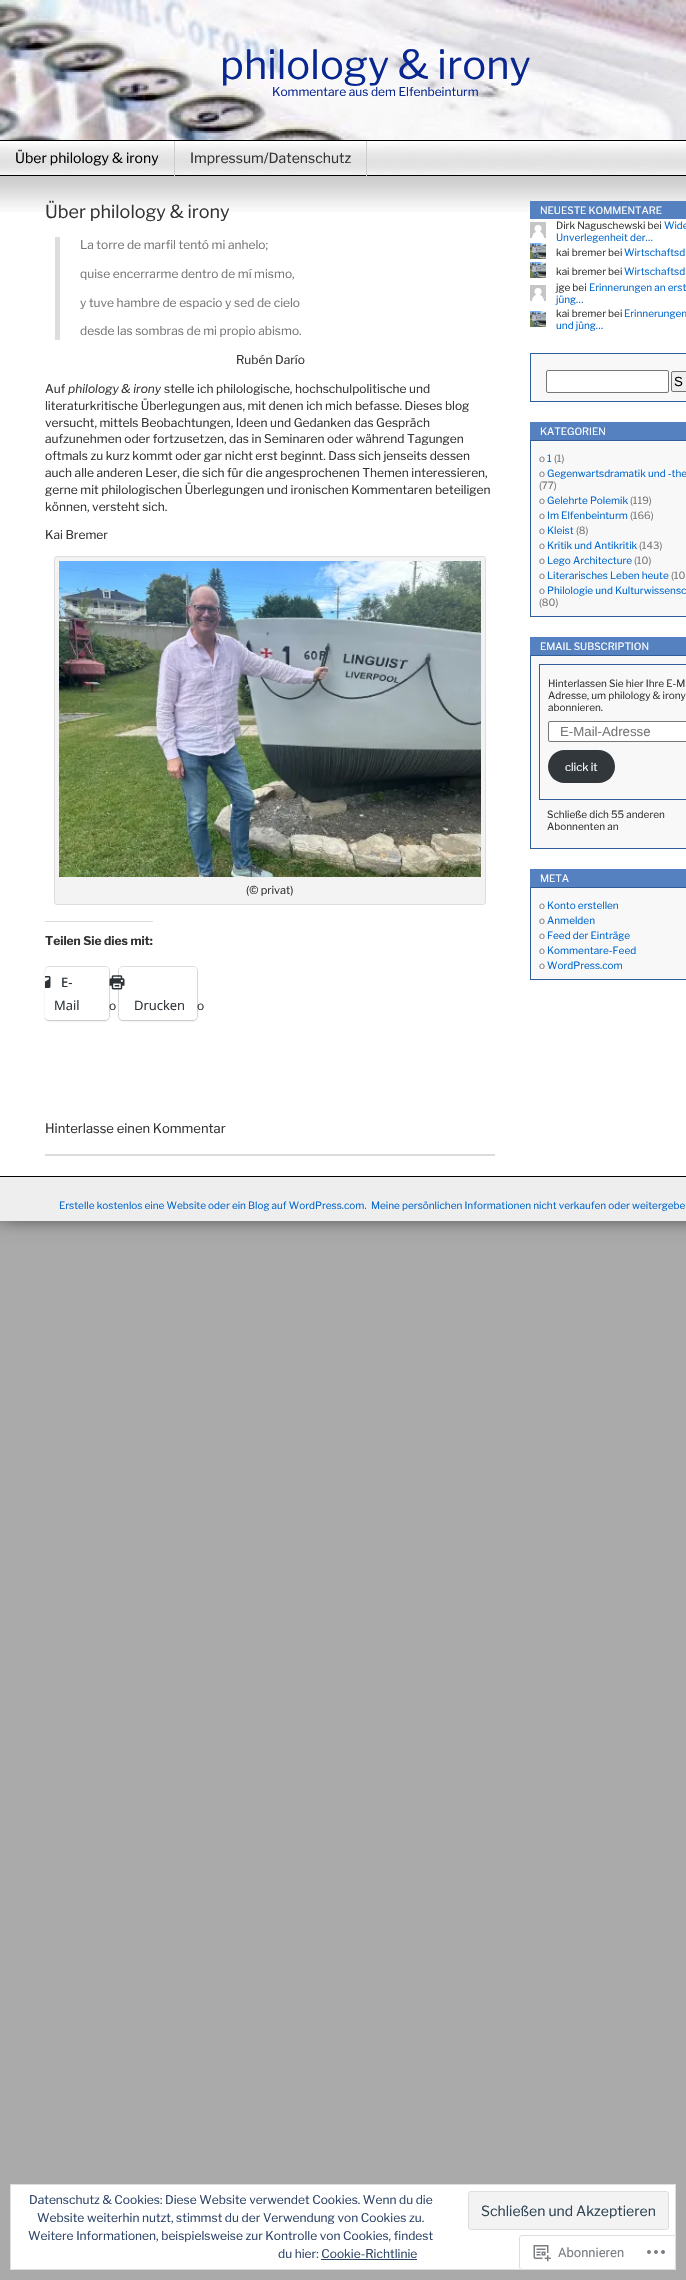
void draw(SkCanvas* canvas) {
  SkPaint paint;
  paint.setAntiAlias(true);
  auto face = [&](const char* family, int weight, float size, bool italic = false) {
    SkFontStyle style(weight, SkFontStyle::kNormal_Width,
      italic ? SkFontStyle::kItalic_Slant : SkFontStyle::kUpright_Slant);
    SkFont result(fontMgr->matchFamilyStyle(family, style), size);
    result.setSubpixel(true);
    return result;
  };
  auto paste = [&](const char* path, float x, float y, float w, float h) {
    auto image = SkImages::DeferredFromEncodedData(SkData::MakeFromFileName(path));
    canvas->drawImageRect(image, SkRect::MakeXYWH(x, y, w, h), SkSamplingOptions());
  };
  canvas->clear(0xffaaaaaa);
  paint.setColor(0x4d000000);
  paint.setMaskFilter(SkMaskFilter::MakeBlur(kNormal_SkBlurStyle, 8));
  canvas->drawRect(SkRect::MakeXYWH(-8, 0, 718, 1221), paint);
  paint.setMaskFilter(nullptr);
  paint.setMaskFilter(SkMaskFilter::MakeBlur(kNormal_SkBlurStyle, 8));
  canvas->drawRect(SkRect::MakeXYWH(8, -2, 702, 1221), paint);
  paint.setMaskFilter(nullptr);
  paint.setColor(0xffffffff);
  canvas->drawRect(SkRect::MakeXYWH(0, 141, 686, 1035), paint);
  paint.setColor(0xff000000);
  canvas->drawRect(SkRect::MakeXYWH(0, 140, 686, 1), paint);
  paste("img/1.png", 0, 0, 686, 140);
  paste("img/2.png", 0, 143, 686, 32);
  {
    const struct { float x, y, w, h; SkColor color; } items[] = {
      {0, 175, 686, 1, 0xff000000},
      {174, 141, 1, 35, 0xffcecece},
      {366, 141, 1, 35, 0xffcecece},
    };
    for (auto [x, y, w, h, color] : items) {
      paint.setColor(color);
      canvas->drawRect(SkRect::MakeXYWH(x, y, w, h), paint);
    }
  }
  paste("img/3.png", 0, 176, 686, 36);
  paint.setColor(0xffdddddd);
  canvas->drawRect(SkRect::MakeXYWH(55, 237, 5, 103), paint);
  paint.setColor(0xfff3f3f3);
  canvas->drawRoundRect(SkRect::MakeXYWH(54.5f, 556.5f, 431, 348), 2.5f, 2.5f, paint);
  paint.setStroke(true);
  paint.setStrokeWidth(1);
  paint.setColor(0xffdddddd);
  canvas->drawRoundRect(SkRect::MakeXYWH(54.5f, 556.5f, 431, 348), 2.5f, 2.5f, paint);
  paste("img/4.png", 59, 561, 422, 316);
  paint.setStroke(false);
  paint.setColor(0xffdcdcde);
  canvas->drawRect(SkRect::MakeXYWH(45, 921, 108, 1), paint);
  canvas->save();
  canvas->clipRect(SkRect::MakeXYWH(45, 222, 450, 868));
  paint.setStroke(true);
  paint.setColor(0xffe0e0e0);
  canvas->drawRoundRect(SkRect::MakeXYWH(44.5f, 966.5f, 65, 54), 4.5f, 4.5f, paint);
  canvas->restore();
  paint.setStroke(false);
  paint.setColor(0x1f000000);
  paint.setMaskFilter(SkMaskFilter::MakeBlur(kNormal_SkBlurStyle, 1));
  canvas->drawRoundRect(SkRect::MakeXYWH(45, 968, 64, 53), 4, 4, paint);
  paint.setMaskFilter(nullptr);
  paint.setColor(0xffffffff);
  canvas->drawRoundRect(SkRect::MakeXYWH(45, 967, 64, 53), 4, 4, paint);
  paste("img/5.png", 45, 976, 6, 12);
  paint.setStroke(true);
  paint.setColor(0xffe0e0e0);
  canvas->drawRoundRect(SkRect::MakeXYWH(118.5f, 966.5f, 79, 54), 4.5f, 4.5f, paint);
  paint.setStroke(false);
  paint.setColor(0x1f000000);
  paint.setMaskFilter(SkMaskFilter::MakeBlur(kNormal_SkBlurStyle, 1));
  canvas->drawRoundRect(SkRect::MakeXYWH(119, 968, 78, 53), 4, 4, paint);
  paint.setMaskFilter(nullptr);
  paint.setColor(0xffffffff);
  canvas->drawRoundRect(SkRect::MakeXYWH(119, 967, 78, 53), 4, 4, paint);
  paste("img/6.png", 109, 975, 16, 15);
  paint.setColor(0xffdcdcde);
  canvas->drawRect(SkRect::MakeXYWH(45, 1154, 450, 2), paint);
  paint.setColor(0xff5581c0);
  canvas->drawRect(SkRect::MakeXYWH(530, 201, 156, 18), paint);
  paste("img/7.png", 530, 222, 16, 16);
  paste("img/8.png", 530, 243, 16, 16);
  paste("img/8.png", 530, 262, 16, 16);
  paste("img/7.png", 530, 285, 16, 16);
  paste("img/8.png", 530, 311, 16, 16);
  paint.setColor(0xfff8f8f8);
  canvas->drawRect(SkRect::MakeXYWH(530.5f, 353.5f, 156, 48), paint);
  paint.setStroke(true);
  paint.setColor(0xff2e5d99);
  canvas->drawRect(SkRect::MakeXYWH(530.5f, 353.5f, 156, 48), paint);
  paint.setStroke(false);
  paint.setColor(0xffffffff);
  canvas->drawRoundRect(SkRect::MakeXYWH(546.5f, 370.5f, 122, 22), 1.5f, 1.5f, paint);
  paint.setStroke(true);
  paint.setColor(0xff767676);
  canvas->drawRoundRect(SkRect::MakeXYWH(546.5f, 370.5f, 122, 22), 1.5f, 1.5f, paint);
  paint.setStroke(false);
  paint.setColor(0xffefefef);
  canvas->drawRoundRect(SkRect::MakeXYWH(671.5f, 371.5f, 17, 20), 1.5f, 1.5f, paint);
  paint.setStroke(true);
  paint.setColor(0xff767676);
  canvas->drawRoundRect(SkRect::MakeXYWH(671.5f, 371.5f, 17, 20), 1.5f, 1.5f, paint);
  paint.setStroke(false);
  paint.setColor(0xff5581c0);
  canvas->drawRect(SkRect::MakeXYWH(530, 422, 156, 18), paint);
  paint.setColor(0xfff8f8f8);
  canvas->drawRect(SkRect::MakeXYWH(530.5f, 440.5f, 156, 176), paint);
  paint.setStroke(true);
  paint.setColor(0xff2e5d99);
  canvas->drawRect(SkRect::MakeXYWH(530.5f, 440.5f, 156, 176), paint);
  paint.setStroke(false);
  paint.setColor(0xff5581c0);
  canvas->drawRect(SkRect::MakeXYWH(530, 637, 156, 18), paint);
  paint.setColor(0xfff8f8f8);
  canvas->drawRect(SkRect::MakeXYWH(530.5f, 655.5f, 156, 193), paint);
  paint.setStroke(true);
  paint.setColor(0xff2e5d99);
  canvas->drawRect(SkRect::MakeXYWH(530.5f, 655.5f, 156, 193), paint);
  canvas->drawRect(SkRect::MakeXYWH(539.5f, 664.5f, 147, 135), paint);
  paint.setStroke(false);
  paint.setColor(0xffffffff);
  canvas->drawRoundRect(SkRect::MakeXYWH(548.5f, 721.5f, 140, 20), 1.5f, 1.5f, paint);
  paint.setStroke(true);
  paint.setColor(0xff767676);
  canvas->drawRoundRect(SkRect::MakeXYWH(548.5f, 721.5f, 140, 20), 1.5f, 1.5f, paint);
  paint.setStroke(false);
  paint.setColor(0xff32373c);
  canvas->drawRoundRect(SkRect::MakeXYWH(548, 750, 67, 33), 16.5f, 16.5f, paint);
  paint.setColor(0xff5581c0);
  canvas->drawRect(SkRect::MakeXYWH(530, 869, 156, 18), paint);
  paint.setColor(0xfff8f8f8);
  canvas->drawRect(SkRect::MakeXYWH(530.5f, 887.5f, 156, 92), paint);
  paint.setStroke(true);
  paint.setColor(0xff2e5d99);
  canvas->drawRect(SkRect::MakeXYWH(530.5f, 887.5f, 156, 92), paint);
  paint.setStroke(false);
  paint.setColor(0xffeeeeee);
  canvas->drawRect(SkRect::MakeXYWH(0, 1177, 686, 44), paint);
  paint.setColor(0xff000000);
  canvas->drawRect(SkRect::MakeXYWH(0, 1176, 686, 1), paint);
  paint.setColor(0xffffffff);
  canvas->drawRect(SkRect::MakeXYWH(10.5f, 2184.5f, 665, 85), paint);
  paint.setStroke(true);
  paint.setColor(0xffdedede);
  canvas->drawRect(SkRect::MakeXYWH(10.5f, 2184.5f, 665, 85), paint);
  paint.setStroke(false);
  paint.setColor(0xfff3f3f3);
  canvas->drawRoundRect(SkRect::MakeXYWH(468.5f, 2191.5f, 200, 38), 2.5f, 2.5f, paint);
  paint.setStroke(true);
  paint.setColor(0xffdedede);
  canvas->drawRoundRect(SkRect::MakeXYWH(468.5f, 2191.5f, 200, 38), 2.5f, 2.5f, paint);
  paint.setStroke(false);
  paint.setColor(0xff2e4467);
  canvas->drawRect(SkRect::MakeXYWH(321, 2259, 96, 1), paint);
  paint.setColor(0xfaffffff);
  canvas->drawRoundRect(SkRect::MakeXYWH(519, 2235, 157, 35), 3, 3, paint);
  paint.setStroke(true);
  paint.setColor(0xfadcdcde);
  canvas->drawRoundRect(SkRect::MakeXYWH(519.5f, 2235.5f, 156, 34), 2.5f, 2.5f, paint);
  paste("img/9.png", 533, 2245, 18, 17);
  paste("img/10.png", 647, 2250, 18, 4);
  auto f0 = face("Libre Franklin", 400, 40);
  paint.setStroke(false);
  paint.setColor(0xff092790);
  canvas->drawString("philology & irony", 220, 79, f0, paint);
  auto f1 = face("Libre Franklin", 400, 12);
  canvas->drawString("Kommentare aus dem Elfenbeinturm", 272, 96, f1, paint);
  auto f2 = face("Libre Franklin", 400, 14);
  paint.setColor(0xff000000);
  canvas->drawString("Über philology & irony", 15, 163, f2, paint);
  paint.setColor(0xff333333);
  canvas->drawString("Impressum/Datenschutz", 190, 163, f2, paint);
  auto f3 = face("Libre Franklin", 400, 18);
  canvas->drawString("Über philology & irony", 45, 218, f3, paint);
  paint.setColor(0xff777777);
  {
    const struct { const char* s; float x, y; } items[] = {
      {"La torre de marfil tentó mi anhelo;", 80, 249},
      {"quise encerrarme dentro de mí mismo,", 80, 278},
      {"y tuve hambre de espacio y sed de cielo", 80, 307},
      {"desde las sombras de mi propio abismo.", 80, 335},
    };
    for (auto [s, x, y] : items) {
      canvas->drawString(s, x, y, f1, paint);
    }
  }
  paint.setColor(0xff333333);
  canvas->drawString("Rubén Darío", 236, 364, f1, paint);
  canvas->drawString("Auf", 45, 393, f1, paint);
  auto f4 = face("Libre Franklin", 400, 12, true);
  canvas->drawString("philology & irony", 68, 393, f4, paint);
  {
    const struct { const char* s; float x, y; } items[] = {
      {"stelle ich philologische, hochschulpolitische und", 164, 393},
      {"literaturkritische Überlegungen aus, mit denen ich mich befasse. Dieses blog", 45, 410},
      {"versucht, mittels Beobachtungen, Ideen und Gedanken das Gespräch", 45, 427},
      {"aufzunehmen oder fortzusetzen, das in Seminaren oder während Tagungen", 45, 443},
      {"oftmals zu kurz kommt oder gar nicht erst beginnt. Dass sich jenseits dessen", 45, 460},
      {"auch alle anderen Leser, die sich für die angesprochenen Themen interessieren,", 45, 477},
      {"gerne mit philologischen Überlegungen und ironischen Kommentaren beteiligen", 45, 494},
      {"können, versteht sich.", 45, 511},
      {"Kai Bremer", 45, 539},
    };
    for (auto [s, x, y] : items) {
      canvas->drawString(s, x, y, f1, paint);
    }
  }
  auto f5 = face("Libre Franklin", 400, 11);
  canvas->drawString("(© privat)", 246, 894, f5, paint);
  auto f6 = face("Libre Franklin", 700, 12);
  canvas->drawString("Teilen Sie dies mit:", 45, 945, f6, paint);
  auto f7 = face("Open Sans", 500, 13);
  paint.setColor(0xff2c3338);
  canvas->drawString("E-", 61, 987, f7, paint);
  auto f8 = face("Open Sans", 400, 13);
  canvas->drawString("Mail", 54, 1010, f8, paint);
  paint.setColor(0xff333333);
  canvas->drawString("o", 109, 1010, f1, paint);
  paint.setColor(0xff2c3338);
  canvas->drawString("Drucken", 134, 1010, f8, paint);
  paint.setColor(0xff333333);
  canvas->drawString("o", 197, 1010, f1, paint);
  auto f9 = face("Libre Franklin", 400, 13);
  canvas->drawString("Hinterlasse einen Kommentar", 45, 1133, f9, paint);
  auto f10 = face("Libre Franklin", 400, 10);
  paint.setColor(0xffffffff);
  canvas->drawString("NEUESTE KOMMENTARE", 540, 214, f10, paint);
  paint.setColor(0xff333333);
  canvas->drawString("Dirk Naguschewski bei", 556, 229, f10, paint);
  paint.setColor(0xff0066cc);
  canvas->drawString("Wide", 664, 229, f10, paint);
  canvas->drawString("Unverlegenheit der…", 556, 241, f10, paint);
  paint.setColor(0xff333333);
  canvas->drawString("kai bremer bei", 556, 256, f10, paint);
  paint.setColor(0xff0066cc);
  canvas->drawString("Wirtschaftsd", 624, 256, f10, paint);
  paint.setColor(0xff333333);
  canvas->drawString("kai bremer bei", 556, 275, f10, paint);
  paint.setColor(0xff0066cc);
  canvas->drawString("Wirtschaftsd", 624, 275, f10, paint);
  paint.setColor(0xff333333);
  canvas->drawString("jge bei", 556, 291, f10, paint);
  paint.setColor(0xff0066cc);
  canvas->drawString("Erinnerungen an erst", 589, 291, f10, paint);
  canvas->drawString("jüng…", 556, 303, f10, paint);
  paint.setColor(0xff333333);
  canvas->drawString("kai bremer bei", 556, 317, f10, paint);
  paint.setColor(0xff0066cc);
  canvas->drawString("Erinnerungen", 624, 317, f10, paint);
  canvas->drawString("und jüng…", 556, 329, f10, paint);
  auto f11 = face("Liberation Sans", 400, 13.25f);
  paint.setColor(0xff000000);
  canvas->drawString("S", 674, 386, f11, paint);
  paint.setColor(0xffffffff);
  canvas->drawString("KATEGORIEN", 540, 435, f10, paint);
  paint.setColor(0xff777777);
  canvas->drawString("o", 539, 462, f10, paint);
  paint.setColor(0xff0066cc);
  canvas->drawString("1", 547, 462, f10, paint);
  paint.setColor(0xff777777);
  canvas->drawString("(1)", 554, 462, f10, paint);
  canvas->drawString("o", 539, 477, f10, paint);
  paint.setColor(0xff0066cc);
  canvas->drawString("Gegenwartsdramatik und -the", 547, 477, f10, paint);
  paint.setColor(0xff777777);
  canvas->drawString("(77)", 539, 489, f10, paint);
  canvas->drawString("o", 539, 504, f10, paint);
  paint.setColor(0xff0066cc);
  canvas->drawString("Gelehrte Polemik", 547, 504, f10, paint);
  paint.setColor(0xff777777);
  canvas->drawString("(119)", 630, 504, f10, paint);
  canvas->drawString("o", 539, 519, f10, paint);
  paint.setColor(0xff0066cc);
  canvas->drawString("Im Elfenbeinturm", 547, 519, f10, paint);
  paint.setColor(0xff777777);
  canvas->drawString("(166)", 630, 519, f10, paint);
  canvas->drawString("o", 539, 534, f10, paint);
  paint.setColor(0xff0066cc);
  canvas->drawString("Kleist", 547, 534, f10, paint);
  paint.setColor(0xff777777);
  canvas->drawString("(8)", 576, 534, f10, paint);
  canvas->drawString("o", 539, 549, f10, paint);
  paint.setColor(0xff0066cc);
  canvas->drawString("Kritik und Antikritik", 547, 549, f10, paint);
  paint.setColor(0xff777777);
  canvas->drawString("(143)", 639, 549, f10, paint);
  canvas->drawString("o", 539, 564, f10, paint);
  paint.setColor(0xff0066cc);
  canvas->drawString("Lego Architecture", 547, 564, f10, paint);
  paint.setColor(0xff777777);
  canvas->drawString("(10)", 634, 564, f10, paint);
  canvas->drawString("o", 539, 579, f10, paint);
  paint.setColor(0xff0066cc);
  canvas->drawString("Literarisches Leben heute", 547, 579, f10, paint);
  paint.setColor(0xff777777);
  canvas->drawString("(10", 671, 579, f10, paint);
  canvas->drawString("o", 539, 594, f10, paint);
  paint.setColor(0xff0066cc);
  canvas->drawString("Philologie und Kulturwissensc", 547, 594, f10, paint);
  paint.setColor(0xff777777);
  canvas->drawString("(80)", 539, 606, f10, paint);
  paint.setColor(0xffffffff);
  canvas->drawString("EMAIL SUBSCRIPTION", 540, 650, f10, paint);
  paint.setColor(0xff333333);
  {
    const struct { const char* s; float x, y; } items[] = {
      {"Hinterlassen Sie hier Ihre E-M", 548, 687},
      {"Adresse, um philology & irony", 548, 699},
      {"abonnieren.", 548, 711},
    };
    for (auto [s, x, y] : items) {
      canvas->drawString(s, x, y, f10, paint);
    }
  }
  paint.setColor(0xff777777);
  canvas->drawString("E-Mail-Adresse", 560, 736, f11, paint);
  paint.setColor(0xffffffff);
  canvas->drawString("click it", 565, 771, f5, paint);
  paint.setColor(0xff333333);
  canvas->drawString("Schließe dich 55 anderen", 547, 818, f10, paint);
  canvas->drawString("Abonnenten an", 547, 830, f10, paint);
  paint.setColor(0xffffffff);
  canvas->drawString("META", 540, 882, f10, paint);
  paint.setColor(0xff777777);
  canvas->drawString("o", 539, 909, f10, paint);
  paint.setColor(0xff0066cc);
  canvas->drawString("Konto erstellen", 547, 909, f10, paint);
  paint.setColor(0xff777777);
  canvas->drawString("o", 539, 924, f10, paint);
  paint.setColor(0xff0066cc);
  canvas->drawString("Anmelden", 547, 924, f10, paint);
  paint.setColor(0xff777777);
  canvas->drawString("o", 539, 939, f10, paint);
  paint.setColor(0xff0066cc);
  canvas->drawString("Feed der Einträge", 547, 939, f10, paint);
  paint.setColor(0xff777777);
  canvas->drawString("o", 539, 954, f10, paint);
  paint.setColor(0xff0066cc);
  canvas->drawString("Kommentare-Feed", 547, 954, f10, paint);
  paint.setColor(0xff777777);
  canvas->drawString("o", 539, 969, f10, paint);
  paint.setColor(0xff0066cc);
  {
    const struct { const char* s; float x, y; } items[] = {
      {"WordPress.com", 547, 969},
      {"Erstelle kostenlos eine Website oder ein Blog auf WordPress.com.", 59, 1209},
      {"Meine persönlichen Informationen nicht verkaufen oder weitergebe", 371, 1209},
    };
    for (auto [s, x, y] : items) {
      canvas->drawString(s, x, y, f10, paint);
    }
  }
  paint.setColor(0xff2e4467);
  canvas->drawString("Datenschutz & Cookies: Diese Website verwendet Cookies. Wenn du die", 29, 2204, f1, paint);
  canvas->drawString("Website weiterhin nutzt, stimmst du der Verwendung von Cookies zu.", 37, 2222, f1, paint);
  paint.setColor(0xff2e4453);
  canvas->drawString("Schließen und Akzeptieren", 481, 2216, f2, paint);
  paint.setColor(0xff2e4467);
  canvas->drawString("Weitere Informationen, beispielsweise zur Kontrolle von Cookies, findest", 28, 2240, f1, paint);
  canvas->drawString("du hier: Cookie-Richtlinie", 278, 2258, f1, paint);
  auto f12 = face("Roboto", 400, 13);
  paint.setColor(0xff7b7f85);
  canvas->drawString("Abonnieren", 558, 2257, f12, paint);
}
